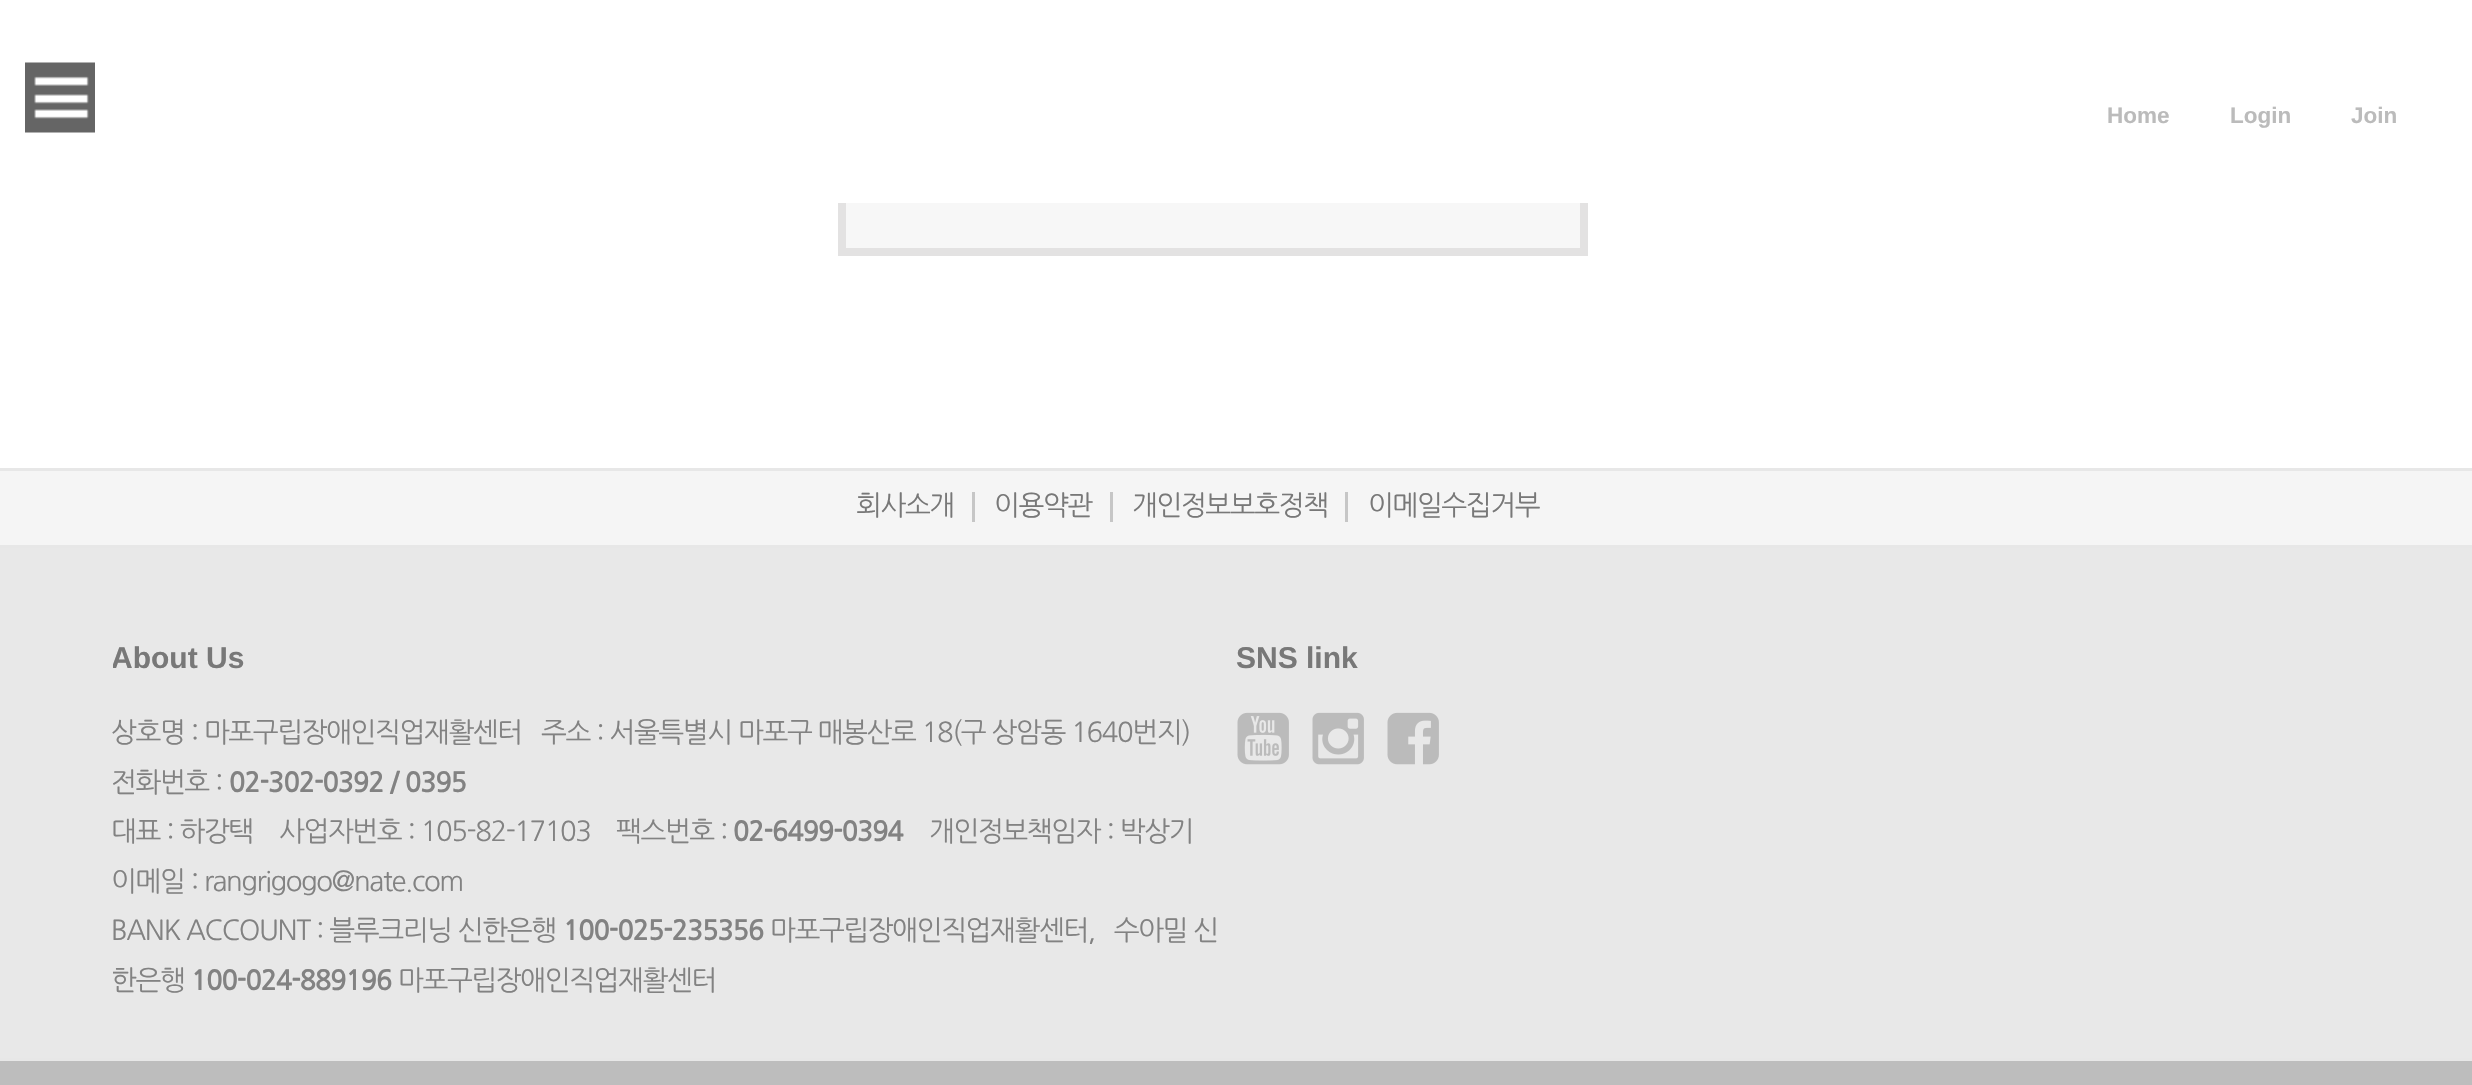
void draw(SkCanvas* canvas) {
  SkPaint paint;
  paint.setAntiAlias(true);
  auto face = [&](const char* family, int weight, float size, bool italic = false) {
    SkFontStyle style(weight, SkFontStyle::kNormal_Width,
      italic ? SkFontStyle::kItalic_Slant : SkFontStyle::kUpright_Slant);
    SkFont result(fontMgr->matchFamilyStyle(family, style), size);
    result.setSubpixel(true);
    return result;
  };
  auto writeSpaced = [&](const char* s, float x, float y, const SkFont& font, const SkPaint& ink, float letter, float word) {
    std::vector<SkGlyphID> glyphs(font.countText(s, strlen(s), SkTextEncoding::kUTF8));
    std::vector<float> xs(glyphs.size());
    font.textToGlyphs(s, strlen(s), SkTextEncoding::kUTF8, glyphs);
    font.getXPos(glyphs, xs, x);
    float extra = 0;
    for (size_t i = 0; i < glyphs.size(); i++) {
      xs[i] += extra;
      extra += letter + word * (glyphs[i] == font.unicharToGlyph(' '));
    }
    canvas->drawTextBlob(SkTextBlob::MakeFromPosHGlyphs(glyphs, xs, y, font), 0, 0, ink);
  };
  auto paste = [&](const char* path, float x, float y, float w, float h) {
    auto image = SkImages::DeferredFromEncodedData(SkData::MakeFromFileName(path));
    canvas->drawImageRect(image, SkRect::MakeXYWH(x, y, w, h), SkSamplingOptions());
  };
  canvas->clear(0xffffffff);
  paste("img/1.png", 25, 62, 70, 71);
  {
    const struct { float x, y, w, h; SkColor color; } items[] = {
      {1580, 203, 8, 52, 0xffe3e2e2},
      {838, 248, 750, 8, 0xffe3e2e2},
      {838, 203, 8, 52, 0xffe3e2e2},
      {846, 203, 734, 45, 0xfff7f7f7},
      {0, 471, 2472, 74, 0xfff5f5f5},
      {0, 468, 2472, 3, 0xffe7e7e7},
      {0, 545, 2472, 3, 0xffe7e7e7},
      {972, 492, 3, 30, 0xffc6c6c6},
      {1110, 492, 3, 30, 0xffc6c6c6},
      {1345, 492, 3, 30, 0xffc6c6c6},
      {0, 548, 2472, 510, 0xffe8e8e8},
    };
    for (auto [x, y, w, h, color] : items) {
      paint.setColor(color);
      canvas->drawRect(SkRect::MakeXYWH(x, y, w, h), paint);
    }
  }
  paste("img/2.png", 1237, 712, 52, 53);
  paste("img/3.png", 1312, 712, 52, 53);
  paste("img/4.png", 1387, 712, 52, 53);
  paint.setColor(0xffbdbdbd);
  canvas->drawRect(SkRect::MakeXYWH(0, 1061, 2472, 24), paint);
  paint.setColor(0xffe7e7e7);
  canvas->drawRect(SkRect::MakeXYWH(0, 1058, 2472, 3), paint);
  auto f0 = face("Liberation Sans", 700, 22.5f);
  paint.setColor(0xffbbbbbb);
  {
    const struct { const char* s; float x, y; } items[] = {
      {"Home", 2107, 123},
      {"Login", 2230, 123},
      {"Join", 2351, 123},
    };
    for (auto [s, x, y] : items) {
      canvas->drawString(s, x, y, f0, paint);
    }
  }
  auto f1 = face("NanumGothic", 400, 27.5f);
  paint.setColor(0xff787878);
  {
    const struct { const char* s; float x, y; } items[] = {
      {"회사소개", 856, 515},
      {"이용약관", 994, 515},
      {"개인정보보호정책", 1132, 515},
      {"이메일수집거부", 1368, 515},
    };
    for (auto [s, x, y] : items) {
      writeSpaced(s, x, y, f1, paint, -1.4f, 0);
    }
  }
  canvas->save();
  canvas->clipRect(SkRect::MakeXYWH(113, 598, 2250, 410));
  auto f2 = face("Liberation Sans", 700, 30);
  canvas->drawString("About Us", 111, 668, f2, paint);
  canvas->restore();
  paint.setColor(0xff828282);
  {
    const struct { const char* s; float x, y; } items[] = {
      {"상호명 : 마포구립장애인직업재활센터", 111, 742},
      {"주소 : 서울특별시 마포구 매봉산로 18(구 상암동 1640번지)", 541, 742},
      {"전화번호 :", 111, 792},
    };
    for (auto [s, x, y] : items) {
      writeSpaced(s, x, y, f1, paint, -1.4f, 0);
    }
  }
  auto f3 = face("NanumGothic", 700, 27.5f);
  writeSpaced("02-302-0392 / 0395", 229, 792, f3, paint, -1.4f, 0);
  {
    const struct { const char* s; float x, y; } items[] = {
      {"대표 : 하강택", 111, 841},
      {"사업자번호 : 105-82-17103", 279, 841},
      {"팩스번호 :", 616, 841},
    };
    for (auto [s, x, y] : items) {
      writeSpaced(s, x, y, f1, paint, -1.4f, 0);
    }
  }
  writeSpaced("02-6499-0394", 733, 841, f3, paint, -1.4f, 0);
  {
    const struct { const char* s; float x, y; } items[] = {
      {"개인정보책임자 : 박상기", 929, 841},
      {"이메일 : rangrigogo@nate.com", 111, 891},
      {"BANK ACCOUNT : 블루크리닝 신한은행", 111, 940},
    };
    for (auto [s, x, y] : items) {
      writeSpaced(s, x, y, f1, paint, -1.4f, 0);
    }
  }
  writeSpaced("100-025-235356", 563, 940, f3, paint, -1.4f, 0);
  writeSpaced("마포구립장애인직업재활센터,   수아밀 신", 770, 940, f1, paint, -1.4f, 0);
  canvas->save();
  canvas->clipRect(SkRect::MakeXYWH(113, 598, 2250, 410));
  writeSpaced("한은행", 111, 990, f1, paint, -1.4f, 0);
  canvas->restore();
  writeSpaced("100-024-889196", 191, 990, f3, paint, -1.4f, 0);
  writeSpaced("마포구립장애인직업재활센터", 398, 990, f1, paint, -1.4f, 0);
  paint.setColor(0xff787878);
  canvas->drawString("SNS link", 1236, 668, f2, paint);
}
